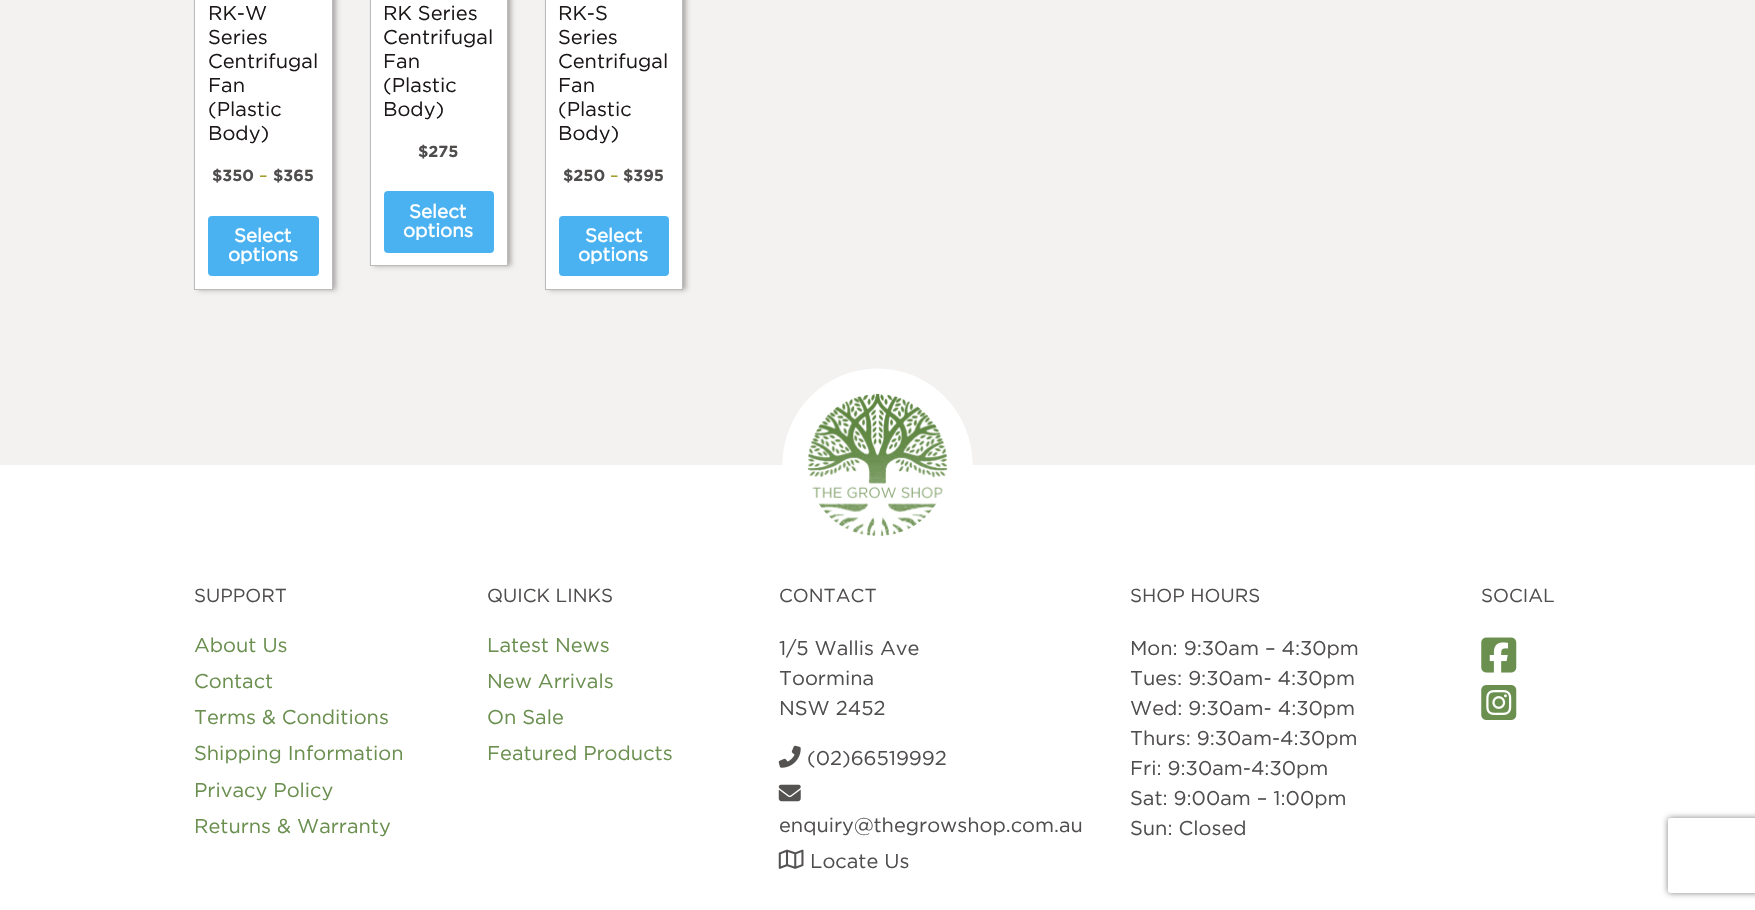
void draw(SkCanvas* canvas) {
  SkPaint paint;
  paint.setAntiAlias(true);
  auto face = [&](const char* family, int weight, float size, bool italic = false) {
    SkFontStyle style(weight, SkFontStyle::kNormal_Width,
      italic ? SkFontStyle::kItalic_Slant : SkFontStyle::kUpright_Slant);
    SkFont result(fontMgr->matchFamilyStyle(family, style), size);
    result.setSubpixel(true);
    return result;
  };
  auto paste = [&](const char* path, float x, float y, float w, float h) {
    auto image = SkImages::DeferredFromEncodedData(SkData::MakeFromFileName(path));
    canvas->drawImageRect(image, SkRect::MakeXYWH(x, y, w, h), SkSamplingOptions());
  };
  auto shape = [&](const char* data, bool evenOdd = false) {
    SkPath result = *SkParsePath::FromSVGString(data);
    if (evenOdd) result.setFillType(SkPathFillType::kEvenOdd);
    return result;
  };
  canvas->clear(0xfff4f2f1);
  paint.setColor(0x4d000000);
  paint.setMaskFilter(SkMaskFilter::MakeBlur(kNormal_SkBlurStyle, 2.5f));
  canvas->drawRect(SkRect::MakeXYWH(198, -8, 138, 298), paint);
  paint.setMaskFilter(nullptr);
  paint.setColor(0xffffffff);
  canvas->drawRect(SkRect::MakeXYWH(194.5f, -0.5f, 138, 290), paint);
  paint.setStroke(true);
  paint.setStrokeWidth(1);
  paint.setColor(0xffbbbbbb);
  canvas->drawRect(SkRect::MakeXYWH(194.5f, -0.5f, 138, 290), paint);
  paint.setStroke(false);
  paint.setColor(0xff4ab2f1);
  canvas->drawRoundRect(SkRect::MakeXYWH(208, 216, 111, 60), 4, 4, paint);
  paint.setColor(0x4d000000);
  paint.setMaskFilter(SkMaskFilter::MakeBlur(kNormal_SkBlurStyle, 2.5f));
  canvas->drawRect(SkRect::MakeXYWH(374, -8, 137, 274), paint);
  paint.setMaskFilter(nullptr);
  paint.setColor(0xffffffff);
  canvas->drawRect(SkRect::MakeXYWH(370.5f, -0.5f, 137, 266), paint);
  paint.setStroke(true);
  paint.setColor(0xffbbbbbb);
  canvas->drawRect(SkRect::MakeXYWH(370.5f, -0.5f, 137, 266), paint);
  paint.setStroke(false);
  paint.setColor(0xff4ab2f1);
  canvas->drawRoundRect(SkRect::MakeXYWH(384, 191, 110, 62), 4, 4, paint);
  paint.setColor(0x4d000000);
  paint.setMaskFilter(SkMaskFilter::MakeBlur(kNormal_SkBlurStyle, 2.5f));
  canvas->drawRect(SkRect::MakeXYWH(549, -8, 137, 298), paint);
  paint.setMaskFilter(nullptr);
  paint.setColor(0xffffffff);
  canvas->drawRect(SkRect::MakeXYWH(545.5f, -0.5f, 137, 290), paint);
  paint.setStroke(true);
  paint.setColor(0xffbbbbbb);
  canvas->drawRect(SkRect::MakeXYWH(545.5f, -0.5f, 137, 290), paint);
  paint.setStroke(false);
  paint.setColor(0xff4ab2f1);
  canvas->drawRoundRect(SkRect::MakeXYWH(559, 216, 110, 60), 4, 4, paint);
  paint.setColor(0xffffffff);
  canvas->drawRect(SkRect::MakeXYWH(0, 465, 1755, 445), paint);
  canvas->drawOval(SkRect::MakeXYWH(782.5f, 369, 190, 192), paint);
  paint.setStroke(true);
  paint.setStrokeWidth(25);
  canvas->drawPath(shape("M877.5 381C923 381 960 418.5 960 465C960 511 923 548.5 877.5 548.5C832 548.5 795 511 795 465C795 418.5 832 381 877.5 381Z"), paint);
  paste("img/1.png", 807, 393, 141, 143);
  paste("img/2.png", 778, 745, 23, 23);
  paste("img/3.png", 778, 784, 23, 18);
  paste("img/4.png", 778, 849, 26, 20);
  paste("img/5.png", 1481, 637, 36, 36);
  paste("img/6.png", 1481, 685, 36, 35);
  canvas->save();
  canvas->clipPath(shape("M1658 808H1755V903H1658ZM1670.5 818H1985.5C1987 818 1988 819 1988 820.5V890.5C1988 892 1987 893 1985.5 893H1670.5C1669 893 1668 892 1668 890.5V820.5C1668 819 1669 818 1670.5 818Z", true), true);
  paint.setStroke(false);
  paint.setColor(0xff808080);
  paint.setMaskFilter(SkMaskFilter::MakeBlur(kNormal_SkBlurStyle, 3));
  canvas->drawRoundRect(SkRect::MakeXYWH(1668, 818, 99, 75), 2.5f, 2.5f, paint);
  paint.setMaskFilter(nullptr);
  canvas->restore();
  auto f0 = face("Gotham", 400, 20);
  paint.setColor(0xff1c1818);
  {
    const struct { const char* s; float x, y; } items[] = {
      {"RK-W", 208, 20},
      {"Series", 208, 44},
      {"Centrifugal", 208, 68},
      {"Fan", 208, 92},
      {"(Plastic", 208, 116},
      {"Body)", 208, 140},
    };
    for (auto [s, x, y] : items) {
      canvas->drawString(s, x, y, f0, paint);
    }
  }
  auto f1 = face("Gotham", 700, 16);
  paint.setColor(0xff504d4d);
  canvas->drawString("$350", 212, 181, f1, paint);
  auto f2 = face("Gotham", 400, 16);
  paint.setColor(0xff958e09);
  canvas->drawString("–", 259, 181, f2, paint);
  paint.setColor(0xff504d4d);
  canvas->drawString("$365", 273, 181, f1, paint);
  auto f3 = face("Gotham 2", 700, 18.75f);
  paint.setColor(0xffffffff);
  canvas->drawString("Select", 234, 242, f3, paint);
  canvas->drawString("options", 228, 261, f3, paint);
  paint.setColor(0xff1c1818);
  {
    const struct { const char* s; float x, y; } items[] = {
      {"RK Series", 383, 20},
      {"Centrifugal", 383, 44},
      {"Fan", 383, 68},
      {"(Plastic", 383, 92},
      {"Body)", 383, 116},
    };
    for (auto [s, x, y] : items) {
      canvas->drawString(s, x, y, f0, paint);
    }
  }
  paint.setColor(0xff504d4d);
  canvas->drawString("$275", 418, 157, f1, paint);
  paint.setColor(0xffffffff);
  canvas->drawString("Select", 409, 218, f3, paint);
  canvas->drawString("options", 403, 237, f3, paint);
  paint.setColor(0xff1c1818);
  {
    const struct { const char* s; float x, y; } items[] = {
      {"RK-S", 558, 20},
      {"Series", 558, 44},
      {"Centrifugal", 558, 68},
      {"Fan", 558, 92},
      {"(Plastic", 558, 116},
      {"Body)", 558, 140},
    };
    for (auto [s, x, y] : items) {
      canvas->drawString(s, x, y, f0, paint);
    }
  }
  paint.setColor(0xff504d4d);
  canvas->drawString("$250", 563, 181, f1, paint);
  paint.setColor(0xff958e09);
  canvas->drawString("–", 610, 181, f2, paint);
  paint.setColor(0xff504d4d);
  canvas->drawString("$395", 623, 181, f1, paint);
  paint.setColor(0xffffffff);
  canvas->drawString("Select", 585, 242, f3, paint);
  canvas->drawString("options", 578, 261, f3, paint);
  auto f4 = face("Gotham", 400, 18.75f);
  paint.setColor(0xff504d4d);
  canvas->drawString("SUPPORT", 194, 602, f4, paint);
  paint.setColor(0xff6a8f4f);
  {
    const struct { const char* s; float x, y; } items[] = {
      {"About Us", 194, 652},
      {"Contact", 194, 688},
      {"Terms & Conditions", 194, 724},
      {"Shipping Information", 194, 760},
      {"Privacy Policy", 194, 797},
      {"Returns & Warranty", 194, 833},
    };
    for (auto [s, x, y] : items) {
      canvas->drawString(s, x, y, f0, paint);
    }
  }
  paint.setColor(0xff504d4d);
  canvas->drawString("QUICK LINKS", 487, 602, f4, paint);
  paint.setColor(0xff6a8f4f);
  {
    const struct { const char* s; float x, y; } items[] = {
      {"Latest News", 487, 652},
      {"New Arrivals", 487, 688},
      {"On Sale", 487, 724},
      {"Featured Products", 487, 760},
    };
    for (auto [s, x, y] : items) {
      canvas->drawString(s, x, y, f0, paint);
    }
  }
  paint.setColor(0xff504d4d);
  canvas->drawString("CONTACT", 779, 602, f4, paint);
  {
    const struct { const char* s; float x, y; } items[] = {
      {"1/5 Wallis Ave", 779, 655},
      {"Toormina", 779, 685},
      {"NSW 2452", 779, 715},
      {"(02)66519992", 807, 765},
      {"enquiry@thegrowshop.com.au", 779, 832},
      {"Locate Us", 810, 868},
    };
    for (auto [s, x, y] : items) {
      canvas->drawString(s, x, y, f0, paint);
    }
  }
  canvas->drawString("SHOP HOURS", 1130, 602, f4, paint);
  {
    const struct { const char* s; float x, y; } items[] = {
      {"Mon: 9:30am – 4:30pm", 1130, 655},
      {"Tues: 9:30am- 4:30pm", 1130, 685},
      {"Wed: 9:30am- 4:30pm", 1130, 715},
      {"Thurs: 9:30am-4:30pm", 1130, 745},
      {"Fri: 9:30am-4:30pm", 1130, 775},
      {"Sat: 9:00am – 1:00pm", 1130, 805},
      {"Sun: Closed", 1130, 835},
    };
    for (auto [s, x, y] : items) {
      canvas->drawString(s, x, y, f0, paint);
    }
  }
  canvas->drawString("SOCIAL", 1481, 602, f4, paint);
}
